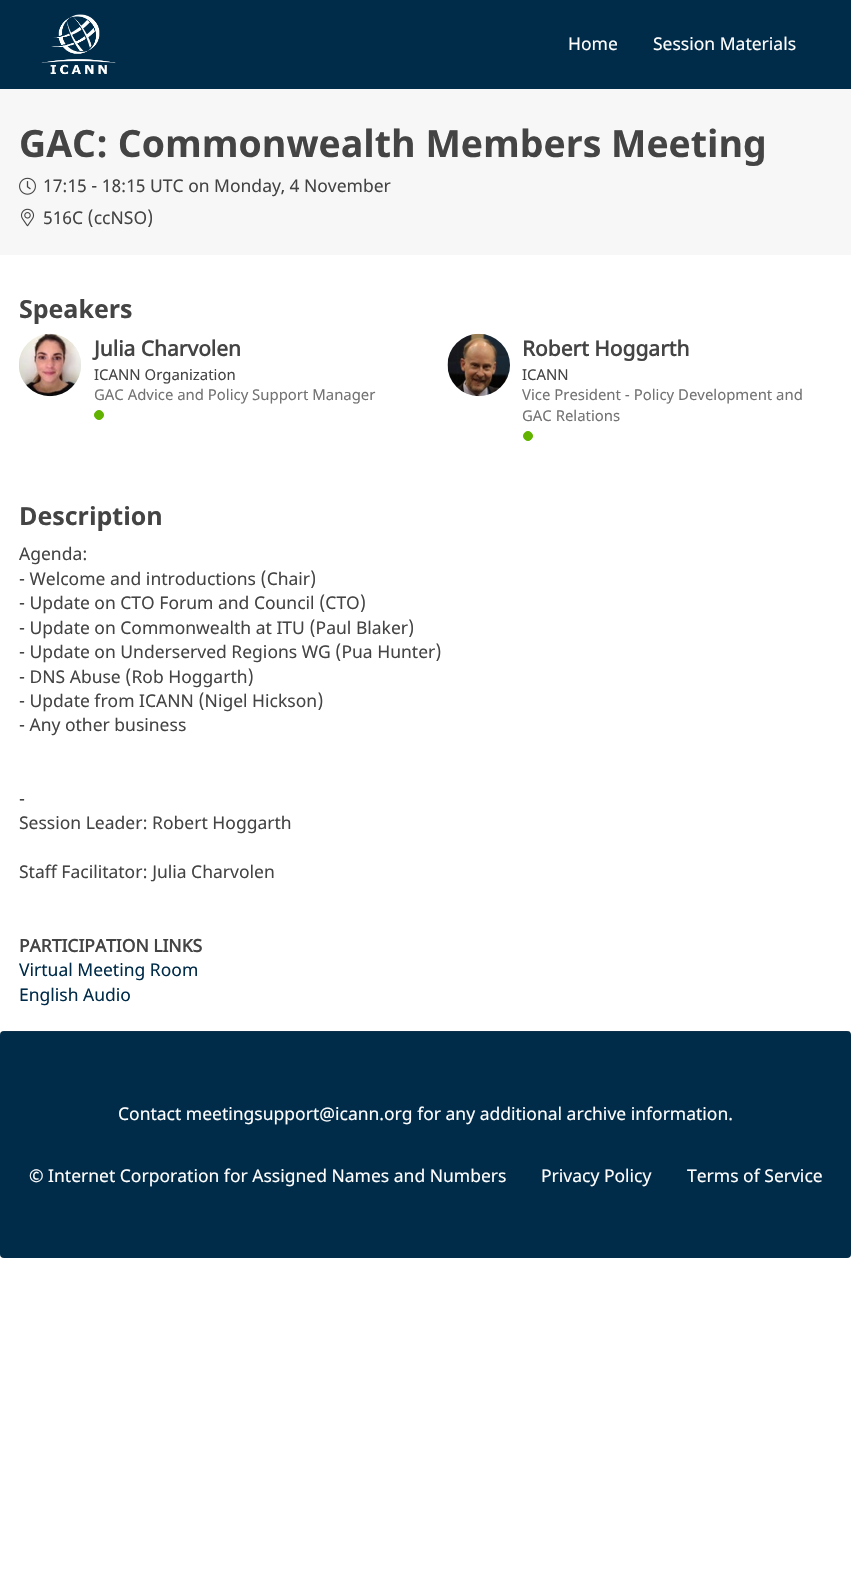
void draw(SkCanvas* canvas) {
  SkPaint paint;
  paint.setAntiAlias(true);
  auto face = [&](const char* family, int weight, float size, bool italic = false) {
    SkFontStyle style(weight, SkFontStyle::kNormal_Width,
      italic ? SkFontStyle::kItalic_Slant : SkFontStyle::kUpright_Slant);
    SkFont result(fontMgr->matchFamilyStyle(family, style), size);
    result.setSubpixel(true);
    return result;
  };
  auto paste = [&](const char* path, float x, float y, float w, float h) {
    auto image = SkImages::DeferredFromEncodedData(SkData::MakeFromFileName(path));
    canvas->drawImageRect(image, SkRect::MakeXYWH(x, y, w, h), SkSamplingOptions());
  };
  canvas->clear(0xffffffff);
  paint.setColor(0xff002b49);
  canvas->drawRect(SkRect::MakeXYWH(0, 0, 851, 89), paint);
  paste("img/1.png", 41, 14, 75, 61);
  paint.setColor(0xfff7f7f7);
  canvas->drawRect(SkRect::MakeXYWH(0, 89, 851, 166), paint);
  paste("img/2.png", 19, 177, 17, 18);
  paste("img/3.png", 20, 208, 15, 19);
  paste("img/4.png", 19, 333, 62, 64);
  paint.setColor(0xff61b300);
  canvas->drawCircle(99, 415, 4.5f, paint);
  paint.setStroke(true);
  paint.setStrokeWidth(1);
  canvas->drawCircle(99, 415, 4.5f, paint);
  paste("img/5.png", 447, 333, 63, 64);
  paint.setStroke(false);
  canvas->drawCircle(528, 436, 4.5f, paint);
  paint.setStroke(true);
  canvas->drawCircle(528, 436, 4.5f, paint);
  paint.setStroke(false);
  paint.setColor(0xff002b49);
  canvas->drawRoundRect(SkRect::MakeXYWH(0, 1031, 851, 227), 4, 4, paint);
  paint.setColor(0x33444444);
  canvas->drawRect(SkRect::MakeXYWH(3, 1031, 847, 1), paint);
  auto f0 = face("Noto Sans", 400, 17.5f);
  paint.setColor(0xffffffff);
  canvas->drawString("Home", 568, 50, f0, paint);
  canvas->drawString("Session Materials", 653, 50, f0, paint);
  auto f1 = face("Noto Sans", 700, 37.5f);
  paint.setColor(0xff444444);
  canvas->drawString("GAC: Commonwealth Members Meeting", 19, 157, f1, paint);
  canvas->drawString("17:15 - 18:15 UTC on Monday, 4 November", 43, 192, f0, paint);
  canvas->drawString("516C (ccNSO)", 43, 224, f0, paint);
  auto f2 = face("Noto Sans", 700, 25);
  canvas->drawString("Speakers", 19, 318, f2, paint);
  auto f3 = face("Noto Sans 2", 700, 21);
  canvas->drawString("Julia Charvolen", 94, 356, f3, paint);
  auto f4 = face("Noto Sans", 400, 14.9f);
  canvas->drawString("ICANN Organization", 94, 380, f4, paint);
  paint.setColor(0xff737373);
  canvas->drawString("GAC Advice and Policy Support Manager", 94, 400, f4, paint);
  paint.setColor(0xff444444);
  canvas->drawString("Robert Hoggarth", 522, 356, f3, paint);
  canvas->drawString("ICANN", 522, 380, f4, paint);
  paint.setColor(0xff737373);
  canvas->drawString("Vice President - Policy Development and", 522, 400, f4, paint);
  canvas->drawString("GAC Relations", 522, 421, f4, paint);
  paint.setColor(0xff444444);
  canvas->drawString("Description", 19, 525, f2, paint);
  {
    const struct { const char* s; float x, y; } items[] = {
      {"Agenda:", 19, 560},
      {"- Welcome and introductions (Chair)", 19, 585},
      {"- Update on CTO Forum and Council (CTO)", 19, 609},
      {"- Update on Commonwealth at ITU (Paul Blaker)", 19, 634},
      {"- Update on Underserved Regions WG (Pua Hunter)", 19, 658},
      {"- DNS Abuse (Rob Hoggarth)", 19, 683},
      {"- Update from ICANN (Nigel Hickson)", 19, 707},
      {"- Any other business", 19, 731},
      {"-", 19, 805},
      {"Session Leader: Robert Hoggarth", 19, 829},
      {"Staff Facilitator: Julia Charvolen", 19, 878},
    };
    for (auto [s, x, y] : items) {
      canvas->drawString(s, x, y, f0, paint);
    }
  }
  auto f5 = face("Noto Sans 2", 700, 17.5f);
  canvas->drawString("PARTICIPATION LINKS", 19, 952, f5, paint);
  paint.setColor(0xff002b49);
  canvas->drawString("Virtual Meeting Room", 19, 976, f0, paint);
  canvas->drawString("English Audio", 19, 1001, f0, paint);
  paint.setColor(0xffffffff);
  {
    const struct { const char* s; float x, y; } items[] = {
      {"Contact meetingsupport@icann.org for any additional archive information.", 118, 1120},
      {"© Internet Corporation for Assigned Names and Numbers", 29, 1182},
      {"Privacy Policy", 541, 1182},
      {"Terms of Service", 687, 1182},
    };
    for (auto [s, x, y] : items) {
      canvas->drawString(s, x, y, f0, paint);
    }
  }
}
